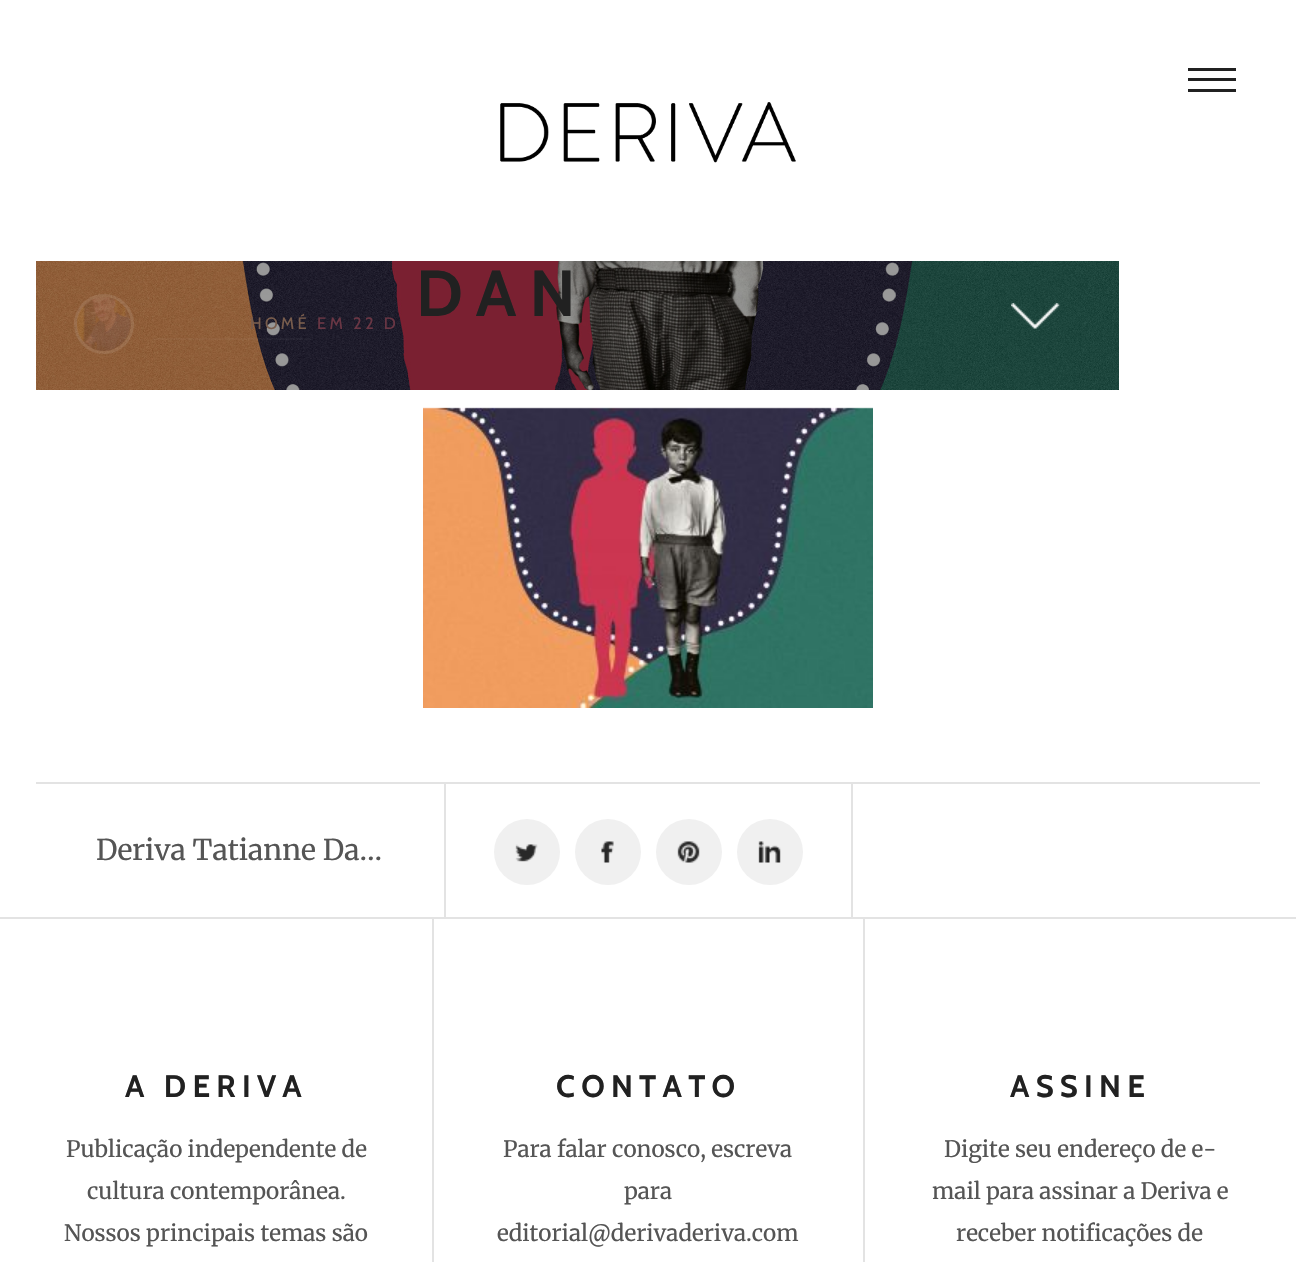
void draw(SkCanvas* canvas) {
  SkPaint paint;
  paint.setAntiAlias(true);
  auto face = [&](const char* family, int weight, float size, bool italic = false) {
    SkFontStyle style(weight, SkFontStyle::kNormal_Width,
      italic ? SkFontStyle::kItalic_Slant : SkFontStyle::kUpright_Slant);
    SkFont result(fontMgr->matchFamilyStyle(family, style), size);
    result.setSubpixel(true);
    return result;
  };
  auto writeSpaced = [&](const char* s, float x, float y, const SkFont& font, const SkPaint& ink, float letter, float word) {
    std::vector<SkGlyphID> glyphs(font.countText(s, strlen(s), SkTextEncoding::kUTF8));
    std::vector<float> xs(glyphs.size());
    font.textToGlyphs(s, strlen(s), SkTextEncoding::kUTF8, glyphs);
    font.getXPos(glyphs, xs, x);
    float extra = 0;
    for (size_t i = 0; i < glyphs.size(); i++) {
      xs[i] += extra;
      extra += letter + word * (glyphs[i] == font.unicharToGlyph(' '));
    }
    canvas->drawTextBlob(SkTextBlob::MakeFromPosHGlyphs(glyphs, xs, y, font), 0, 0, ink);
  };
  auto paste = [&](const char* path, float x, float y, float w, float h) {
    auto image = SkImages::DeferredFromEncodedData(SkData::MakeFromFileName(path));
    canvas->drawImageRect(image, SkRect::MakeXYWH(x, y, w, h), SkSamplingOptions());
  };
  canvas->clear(0xffffffff);
  {
    const struct { float x, y, w, h; SkColor color; } items[] = {
      {1188, 78, 48, 3, 0xff212121},
      {1188, 68, 48, 3, 0xff212121},
      {1188, 89, 48, 3, 0xff212121},
    };
    for (auto [x, y, w, h, color] : items) {
      paint.setColor(color);
      canvas->drawRect(SkRect::MakeXYWH(x, y, w, h), paint);
    }
  }
  paste("img/1.png", 500, 102, 296, 61);
  paste("img/2.png", 36, 261, 1083, 129);
  paint.setStroke(true);
  paint.setStrokeWidth(3);
  paint.setColor(0x1affffff);
  canvas->drawCircle(104, 324, 28.5f, paint);
  paste("img/3.png", 77, 297, 54, 54);
  paint.setStroke(false);
  paint.setColor(0x08ffffff);
  canvas->drawRect(SkRect::MakeXYWH(153, 338, 158, 2), paint);
  paste("img/4.png", 1011, 303, 49, 26);
  paste("img/5.png", 423, 407, 450, 301);
  {
    const struct { float x, y, w, h; SkColor color; } items[] = {
      {36, 782, 816, 2, 0xffe3e3e3},
      {851, 782, 2, 135, 0xffe3e3e3},
      {444, 782, 2, 135, 0xffe3e3e3},
    };
    for (auto [x, y, w, h, color] : items) {
      paint.setColor(color);
      canvas->drawRect(SkRect::MakeXYWH(x, y, w, h), paint);
    }
  }
  paint.setColor(0xfff0f0f0);
  canvas->drawCircle(527, 852, 33, paint);
  paste("img/6.png", 515, 844, 23, 18);
  canvas->drawCircle(608, 852, 33, paint);
  paste("img/7.png", 601, 841, 13, 22);
  canvas->drawCircle(689, 852, 33, paint);
  paste("img/8.png", 677, 841, 23, 22);
  canvas->drawCircle(770, 852, 33, paint);
  paste("img/9.png", 758, 841, 23, 22);
  {
    const struct { float x, y, w, h; SkColor color; } items[] = {
      {852, 782, 408, 2, 0xffe3e3e3},
      {0, 917, 1296, 2, 0xffe3e3e3},
      {863, 918, 2, 344, 0xffe3e3e3},
      {432, 918, 2, 344, 0xffe3e3e3},
    };
    for (auto [x, y, w, h, color] : items) {
      paint.setColor(color);
      canvas->drawRect(SkRect::MakeXYWH(x, y, w, h), paint);
    }
  }
  auto f0 = face("Cabin", 400, 16.5f);
  paint.setColor(0xff785c4c);
  writeSpaced("HOMÉ", 250, 329, f0, paint, 3.25f, 0);
  paint.setColor(0xff6a3644);
  writeSpaced("EM 22 D", 317, 329, f0, paint, 3.25f, 0);
  auto f1 = face("Cabin", 700, 65);
  paint.setColor(0xff212121);
  writeSpaced("DAN", 416, 316, f1, paint, 13, 0);
  auto f2 = face("Merriweather", 400, 28.5f);
  paint.setColor(0xff555555);
  canvas->drawString("Deriva Tatianne Da…", 96, 860, f2, paint);
  auto f3 = face("Cabin", 700, 31);
  paint.setColor(0xff212121);
  writeSpaced("A DERIVA", 125, 1097, f3, paint, 6.25f, 0);
  auto f4 = face("Merriweather", 400, 22.5f);
  paint.setColor(0xff555555);
  {
    const struct { const char* s; float x, y; } items[] = {
      {"Publicação independente de", 66, 1157},
      {"cultura contemporânea.", 87, 1199},
      {"Nossos principais temas são", 64, 1241},
    };
    for (auto [s, x, y] : items) {
      canvas->drawString(s, x, y, f4, paint);
    }
  }
  paint.setColor(0xff212121);
  writeSpaced("CONTATO", 556, 1097, f3, paint, 6.25f, 0);
  paint.setColor(0xff555555);
  {
    const struct { const char* s; float x, y; } items[] = {
      {"Para falar conosco, escreva", 503, 1157},
      {"para", 624, 1199},
      {"editorial@derivaderiva.com", 497, 1241},
    };
    for (auto [s, x, y] : items) {
      canvas->drawString(s, x, y, f4, paint);
    }
  }
  paint.setColor(0xff212121);
  writeSpaced("ASSINE", 1010, 1097, f3, paint, 6.25f, 0);
  paint.setColor(0xff555555);
  {
    const struct { const char* s; float x, y; } items[] = {
      {"Digite seu endereço de e-", 944, 1157},
      {"mail para assinar a Deriva e", 932, 1199},
      {"receber notificações de", 956, 1241},
    };
    for (auto [s, x, y] : items) {
      canvas->drawString(s, x, y, f4, paint);
    }
  }
}
